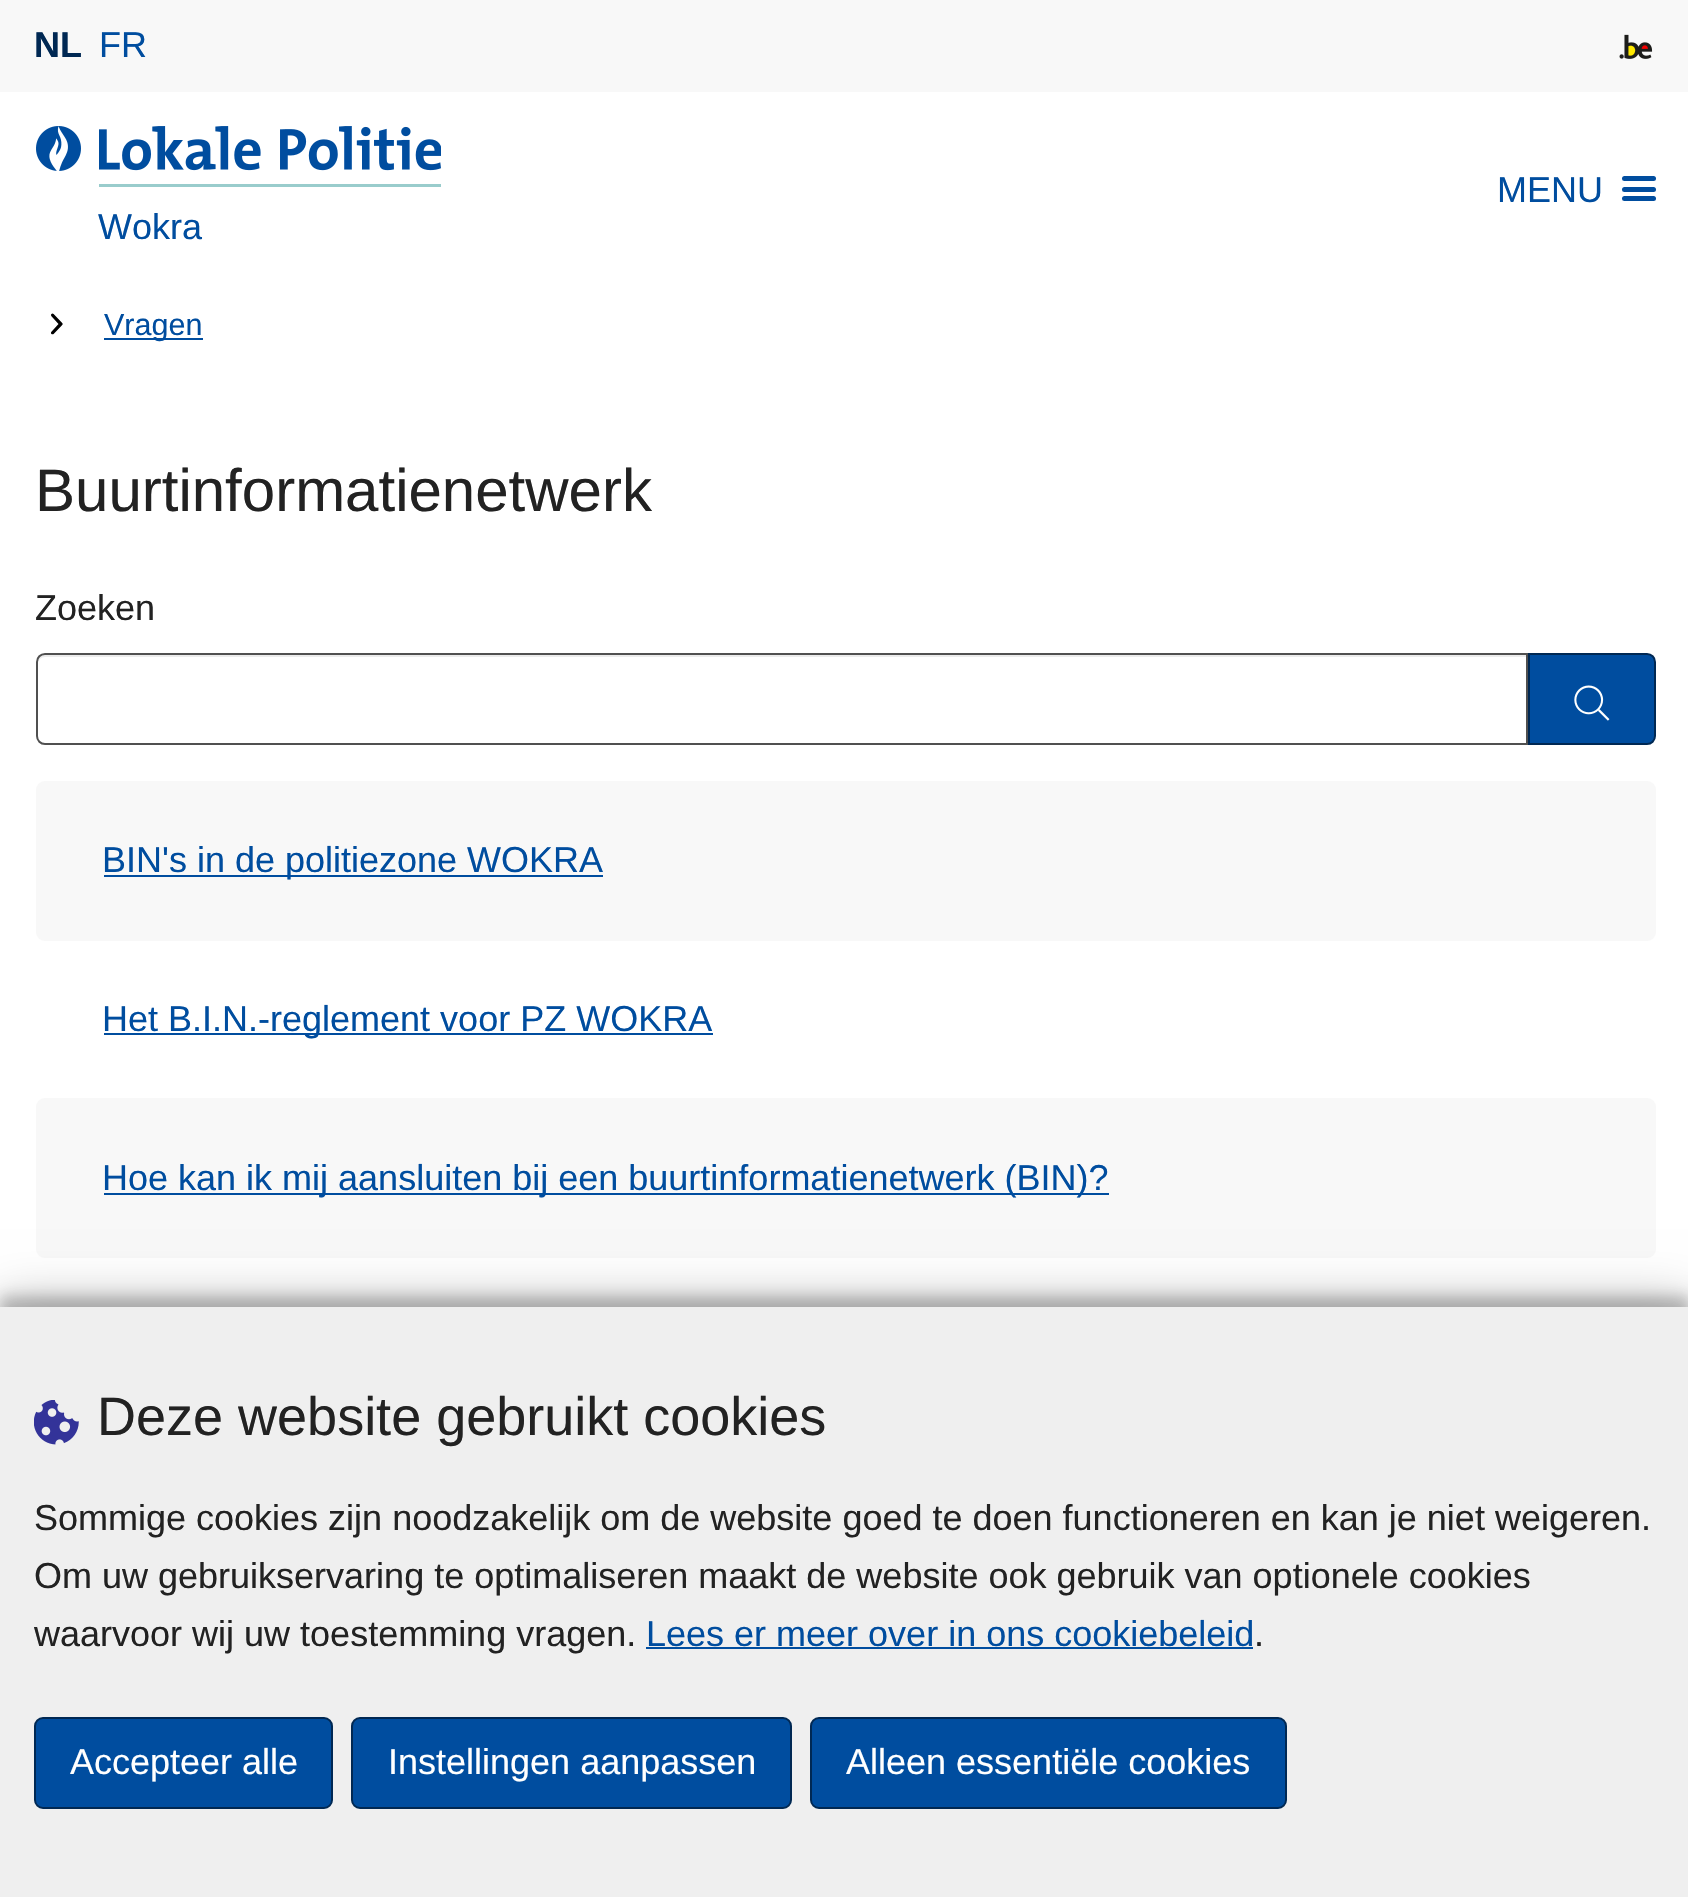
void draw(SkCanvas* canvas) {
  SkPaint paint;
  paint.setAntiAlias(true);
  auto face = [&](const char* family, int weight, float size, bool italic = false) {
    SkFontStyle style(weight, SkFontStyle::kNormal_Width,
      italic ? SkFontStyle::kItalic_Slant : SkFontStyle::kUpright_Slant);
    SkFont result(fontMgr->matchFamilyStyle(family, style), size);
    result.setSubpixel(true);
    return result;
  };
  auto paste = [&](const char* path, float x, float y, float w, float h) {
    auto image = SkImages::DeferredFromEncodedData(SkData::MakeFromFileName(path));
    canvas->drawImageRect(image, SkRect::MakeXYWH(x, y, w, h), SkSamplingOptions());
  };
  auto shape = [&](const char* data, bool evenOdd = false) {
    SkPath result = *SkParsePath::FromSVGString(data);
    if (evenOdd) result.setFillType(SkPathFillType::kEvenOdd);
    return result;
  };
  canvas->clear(0xffffffff);
  paint.setColor(0xfff8f8f8);
  canvas->drawRect(SkRect::MakeXYWH(0, 0, 1688, 92), paint);
  paste("img/1.png", 1619, 34, 34, 25);
  paint.setColor(0xff004d9f);
  canvas->drawRoundRect(SkRect::MakeXYWH(1622, 187, 34, 5), 2.5f, 2.5f, paint);
  canvas->drawRoundRect(SkRect::MakeXYWH(1622, 176, 34, 5), 2.5f, 2.5f, paint);
  canvas->drawRoundRect(SkRect::MakeXYWH(1622, 196, 34, 5), 2.5f, 2.5f, paint);
  paste("img/2.png", 36, 126, 45, 45);
  paste("img/3.png", 99, 126, 342, 61);
  paste("img/4.png", 51, 313, 12, 22);
  canvas->drawRect(SkRect::MakeXYWH(104, 338, 99, 2), paint);
  paint.setColor(0xffececec);
  canvas->drawPath(shape("M45 657H1526V655H45C40 655 38 660 38 664C38 660 41 657 45 657Z"), paint);
  paint.setStroke(true);
  paint.setStrokeWidth(2);
  paint.setColor(0xff505050);
  canvas->drawPath(shape("M45 654H1527V744H45C40.5 744 37 740.5 37 736V662C37 657.5 40.5 654 45 654Z"), paint);
  paint.setStroke(false);
  paint.setColor(0xff004d9f);
  canvas->drawPath(shape("M1529 654H1647C1651.5 654 1655 657.5 1655 662V736C1655 740.5 1651.5 744 1647 744H1529Z"), paint);
  paint.setStroke(true);
  paint.setColor(0xff002853);
  canvas->drawPath(shape("M1529 654H1647C1651.5 654 1655 657.5 1655 662V736C1655 740.5 1651.5 744 1647 744H1529Z"), paint);
  paste("img/5.png", 1574, 685, 36, 36);
  paint.setStroke(false);
  paint.setColor(0xfff8f8f8);
  canvas->drawRoundRect(SkRect::MakeXYWH(36, 781, 1620, 160), 9, 9, paint);
  paint.setColor(0xff004d9f);
  canvas->drawRect(SkRect::MakeXYWH(104, 875, 499, 2), paint);
  canvas->drawRect(SkRect::MakeXYWH(104, 1033, 609, 2), paint);
  paint.setColor(0xfff8f8f8);
  canvas->drawRoundRect(SkRect::MakeXYWH(36, 1098, 1620, 160), 9, 9, paint);
  paint.setColor(0xff004d9f);
  canvas->drawRect(SkRect::MakeXYWH(104, 1193, 1005, 2), paint);
  paint.setColor(0x3b000000);
  paint.setMaskFilter(SkMaskFilter::MakeBlur(kNormal_SkBlurStyle, 7));
  canvas->drawRect(SkRect::MakeXYWH(0, 1296, 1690, 592), paint);
  paint.setMaskFilter(nullptr);
  paint.setColor(0x30000000);
  paint.setMaskFilter(SkMaskFilter::MakeBlur(kNormal_SkBlurStyle, 22.5f));
  canvas->drawRect(SkRect::MakeXYWH(0, 1296, 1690, 592), paint);
  paint.setMaskFilter(nullptr);
  paint.setColor(0xffefefef);
  canvas->drawRect(SkRect::MakeXYWH(0, 1307, 1688, 590), paint);
  paste("img/6.png", 34, 1400, 45, 45);
  paint.setColor(0xff004d9f);
  canvas->drawRect(SkRect::MakeXYWH(646, 1647, 607, 2), paint);
  canvas->drawRoundRect(SkRect::MakeXYWH(35, 1718, 297, 90), 8, 8, paint);
  paint.setStroke(true);
  paint.setColor(0xff002853);
  canvas->drawRoundRect(SkRect::MakeXYWH(35, 1718, 297, 90), 8, 8, paint);
  paint.setStroke(false);
  paint.setColor(0xff004d9f);
  canvas->drawRoundRect(SkRect::MakeXYWH(352, 1718, 439, 90), 8, 8, paint);
  paint.setStroke(true);
  paint.setColor(0xff002853);
  canvas->drawRoundRect(SkRect::MakeXYWH(352, 1718, 439, 90), 8, 8, paint);
  paint.setStroke(false);
  paint.setColor(0xff004d9f);
  canvas->drawRoundRect(SkRect::MakeXYWH(811, 1718, 475, 90), 8, 8, paint);
  paint.setStroke(true);
  paint.setColor(0xff002853);
  canvas->drawRoundRect(SkRect::MakeXYWH(811, 1718, 475, 90), 8, 8, paint);
  auto f0 = face("Liberation Sans", 700, 36);
  paint.setStroke(false);
  canvas->drawString("NL", 34, 57, f0, paint);
  auto f1 = face("Liberation Sans", 400, 36);
  paint.setColor(0xff004d9f);
  {
    const struct { const char* s; float x, y; } items[] = {
      {"FR", 99, 57},
      {"MENU", 1497, 202},
      {"Wokra", 98, 239},
    };
    for (auto [s, x, y] : items) {
      canvas->drawString(s, x, y, f1, paint);
    }
  }
  auto f2 = face("Liberation Sans", 400, 30.5f);
  canvas->drawString("Vragen", 104, 335, f2, paint);
  auto f3 = face("Liberation Sans", 400, 60);
  paint.setColor(0xff222222);
  canvas->drawString("Buurtinformatienetwerk", 35, 511, f3, paint);
  canvas->drawString("Zoeken", 35, 620, f1, paint);
  paint.setColor(0xff004d9f);
  {
    const struct { const char* s; float x, y; } items[] = {
      {"BIN's in de politiezone WOKRA", 102, 872},
      {"Het B.I.N.-reglement voor PZ WOKRA", 102, 1031},
      {"Hoe kan ik mij aansluiten bij een buurtinformatienetwerk (BIN)?", 102, 1190},
    };
    for (auto [s, x, y] : items) {
      canvas->drawString(s, x, y, f1, paint);
    }
  }
  auto f4 = face("Liberation Sans", 400, 54);
  paint.setColor(0xff222222);
  canvas->drawString("Deze website gebruikt cookies", 97, 1435, f4, paint);
  {
    const struct { const char* s; float x, y; } items[] = {
      {"Sommige cookies zijn noodzakelijk om de website goed te doen functioneren en kan je niet weigeren.", 34, 1530},
      {"Om uw gebruikservaring te optimaliseren maakt de website ook gebruik van optionele cookies", 34, 1588},
      {"waarvoor wij uw toestemming vragen.", 34, 1646},
    };
    for (auto [s, x, y] : items) {
      canvas->drawString(s, x, y, f1, paint);
    }
  }
  paint.setColor(0xff004d9f);
  canvas->drawString("Lees er meer over in ons cookiebeleid", 646, 1646, f1, paint);
  paint.setColor(0xff222222);
  canvas->drawString(".", 1254, 1646, f1, paint);
  paint.setColor(0xffffffff);
  {
    const struct { const char* s; float x, y; } items[] = {
      {"Accepteer alle", 70, 1774},
      {"Instellingen aanpassen", 388, 1774},
      {"Alleen essentiële cookies", 846, 1774},
    };
    for (auto [s, x, y] : items) {
      canvas->drawString(s, x, y, f1, paint);
    }
  }
}
